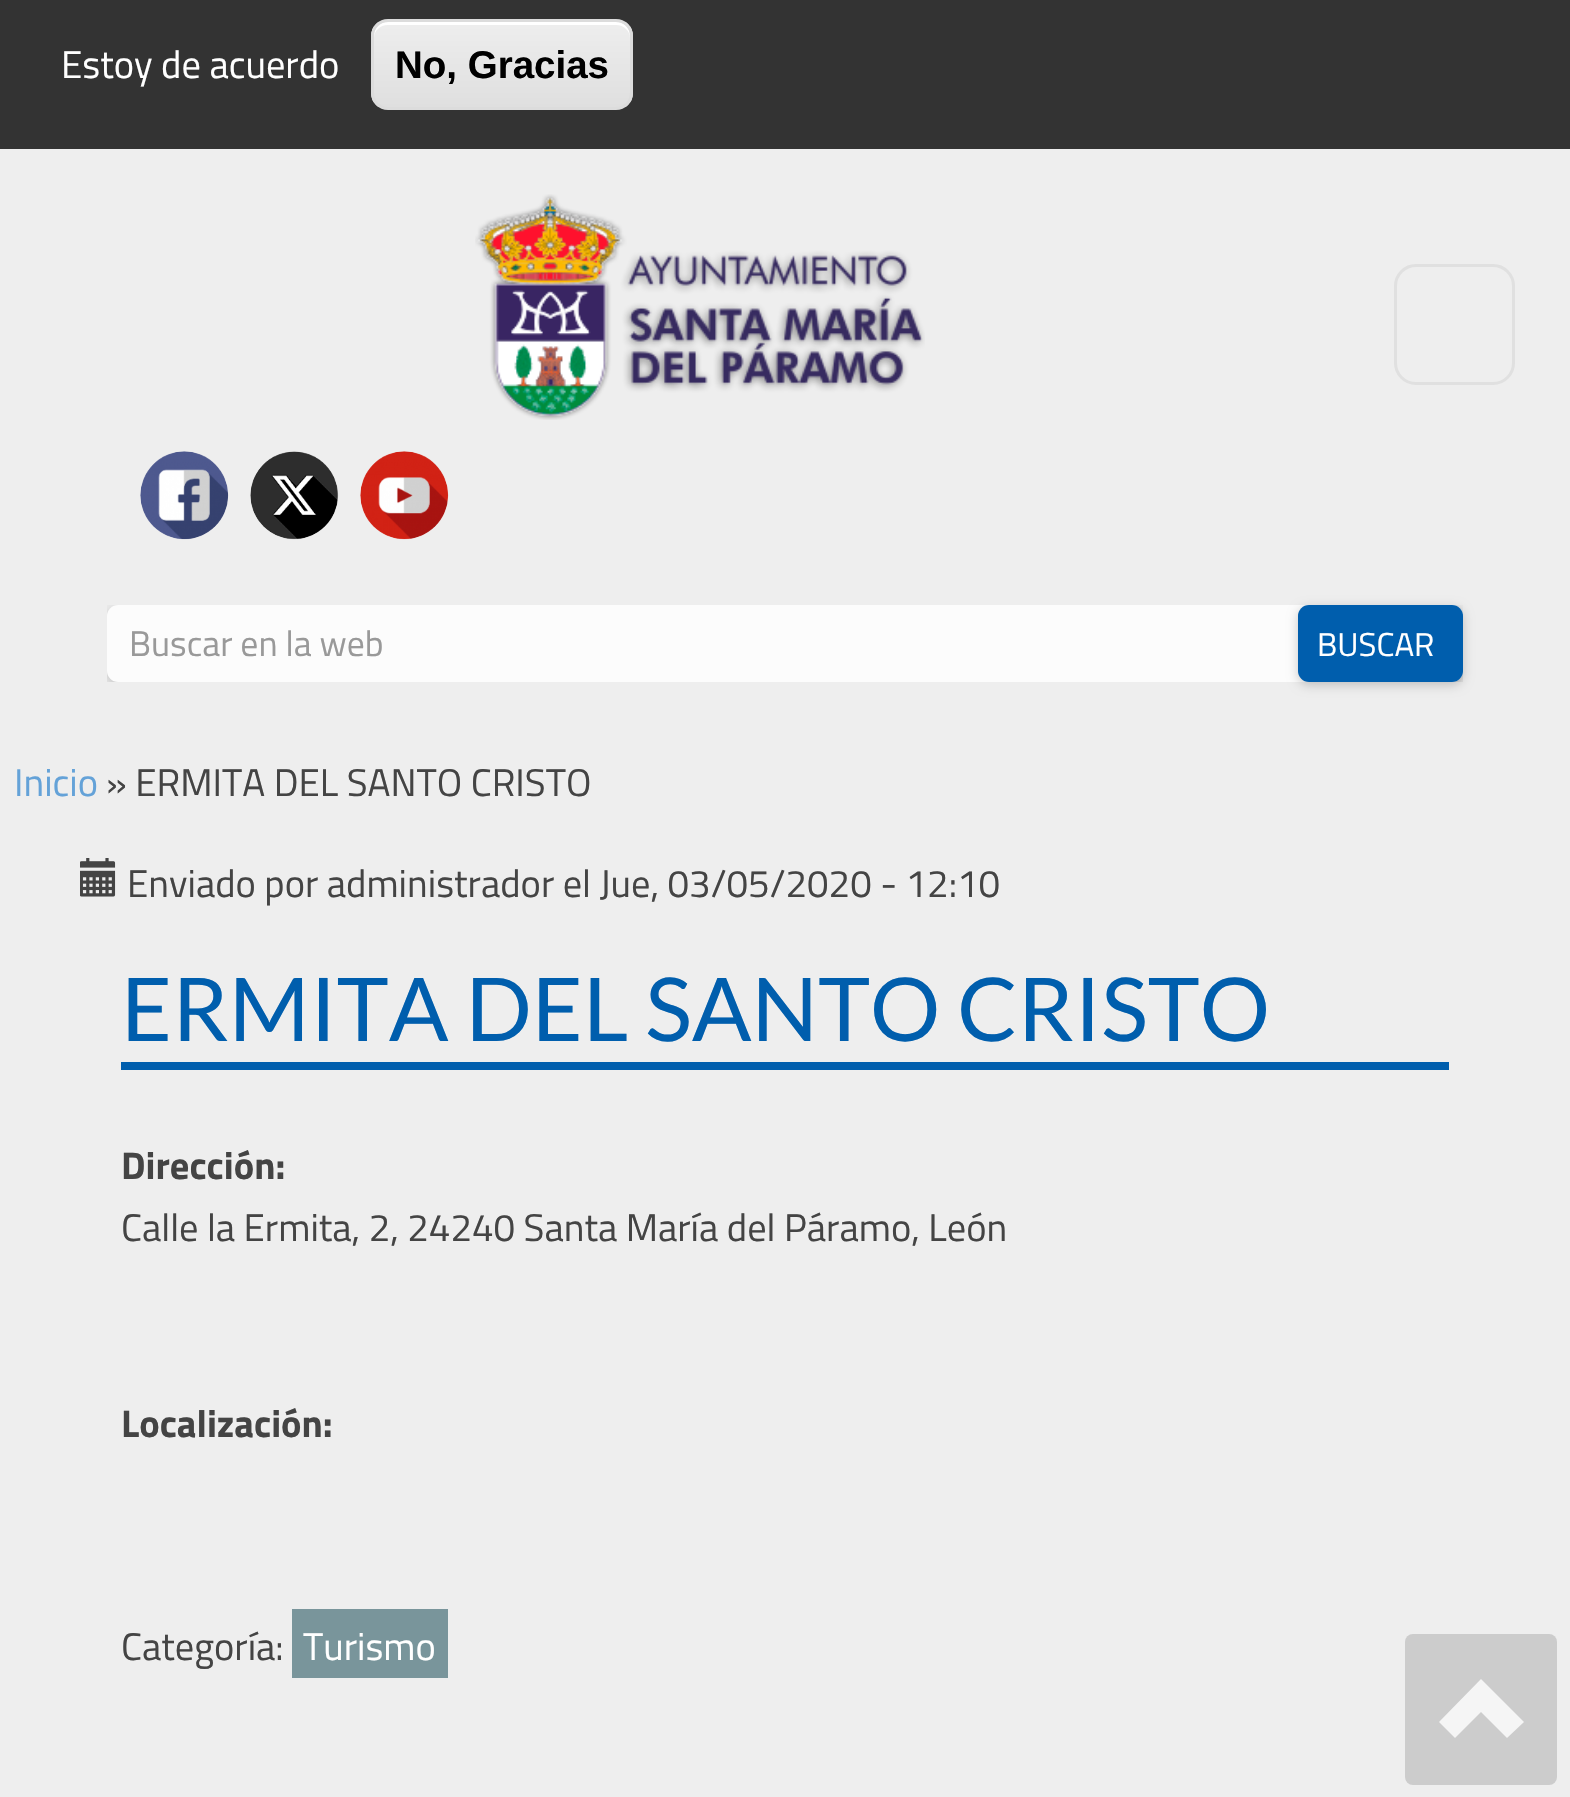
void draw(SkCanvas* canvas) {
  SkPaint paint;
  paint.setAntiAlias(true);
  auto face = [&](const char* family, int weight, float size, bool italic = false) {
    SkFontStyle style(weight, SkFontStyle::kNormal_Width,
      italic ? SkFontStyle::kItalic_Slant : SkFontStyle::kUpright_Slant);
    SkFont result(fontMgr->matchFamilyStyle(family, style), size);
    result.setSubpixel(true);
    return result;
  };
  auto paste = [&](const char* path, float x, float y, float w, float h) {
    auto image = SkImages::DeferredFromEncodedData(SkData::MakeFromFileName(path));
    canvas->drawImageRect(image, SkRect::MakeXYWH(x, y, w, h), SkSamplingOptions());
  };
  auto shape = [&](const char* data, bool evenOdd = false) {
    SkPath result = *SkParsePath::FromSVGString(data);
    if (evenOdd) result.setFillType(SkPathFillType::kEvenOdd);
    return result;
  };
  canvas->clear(0xffeeeeee);
  paint.setColor(0xff333333);
  canvas->drawRect(SkRect::MakeXYWH(0, 0, 1570, 149), paint);
  canvas->save();
  canvas->clipPath(shape("M388 19H616C625.5 19 633 26.5 633 36V93C633 102.5 625.5 110 616 110H388C378.5 110 371 102.5 371 93V36C371 26.5 378.5 19 388 19Z"), true);
  {
    const SkColor colors[] = {0xffededed, 0xffdfdfdf};
    const float stops[] = {0.05f, 1};
    const SkPoint ends[] = {{502, 22}, {502, 107}};
    paint.setShader(SkGradientShader::MakeLinear(ends, colors, stops, 2, SkTileMode::kClamp));
    paint.setAlpha(255);
  }
  canvas->drawRect(SkRect::MakeXYWH(371, 22, 262, 85), paint);
  canvas->restore();
  paint.setShader(nullptr);
  paint.setColor(0xffffffff);
  canvas->drawPath(shape("M388 25H616C624 25 630 31 630 38V36C630 28 624 22 616 22H388C380 22 374 28 374 36V38C374 31 380 25 388 25Z"), paint);
  paint.setStroke(true);
  paint.setStrokeWidth(3);
  paint.setColor(0xffdcdcdc);
  canvas->drawRoundRect(SkRect::MakeXYWH(372.5f, 20.5f, 259, 88), 15.5f, 15.5f, paint);
  paint.setColor(0xffe0e0e0);
  canvas->drawRoundRect(SkRect::MakeXYWH(1395.5f, 265.5f, 118, 118), 20.5f, 20.5f, paint);
  paste("img/1.png", 475, 194, 450, 226);
  paste("img/2.png", 140, 451, 89, 89);
  paste("img/3.png", 250, 451, 89, 89);
  paste("img/4.png", 360, 451, 89, 89);
  canvas->save();
  canvas->clipRect(SkRect::MakeXYWH(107, 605, 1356, 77));
  paint.setStroke(false);
  paint.setColor(0x33000000);
  paint.setMaskFilter(SkMaskFilter::MakeBlur(kNormal_SkBlurStyle, 5.5f));
  canvas->drawRoundRect(SkRect::MakeXYWH(107, 608, 1356, 77), 11, 11, paint);
  paint.setMaskFilter(nullptr);
  canvas->restore();
  paint.setColor(0xfffcfcfc);
  canvas->drawRoundRect(SkRect::MakeXYWH(107, 605, 1356, 77), 11, 11, paint);
  paint.setColor(0x33000000);
  paint.setMaskFilter(SkMaskFilter::MakeBlur(kNormal_SkBlurStyle, 5.5f));
  canvas->drawRoundRect(SkRect::MakeXYWH(1298, 608, 165, 77), 11, 11, paint);
  paint.setMaskFilter(nullptr);
  paint.setColor(0xff005ead);
  canvas->drawRoundRect(SkRect::MakeXYWH(1298, 605, 165, 77), 11, 11, paint);
  paste("img/5.png", 80, 858, 36, 39);
  canvas->drawRect(SkRect::MakeXYWH(121, 1062, 1328, 8), paint);
  paint.setColor(0xff79959b);
  canvas->drawRect(SkRect::MakeXYWH(292, 1609, 156, 69), paint);
  paint.setColor(0xffcccccc);
  canvas->drawRoundRect(SkRect::MakeXYWH(1405, 1634, 152, 151), 8, 8, paint);
  paint.setColor(0xfff5f5f5);
  canvas->drawPath(shape("M1439 1722L1455 1738L1481 1712L1507 1738L1524 1722L1481 1679Z"), paint);
  auto f0 = face("Titillium Web", 400, 38.5f);
  paint.setColor(0xffffffff);
  canvas->drawString("Estoy de acuerdo", 61, 78, f0, paint);
  auto f1 = face("Liberation Sans", 700, 38.5f);
  paint.setColor(0xff000000);
  canvas->drawString("No, Gracias", 395, 78, f1, paint);
  auto f2 = face("Titillium Web", 400, 35.75f);
  paint.setColor(0xff999999);
  canvas->drawString("Buscar en la web", 129, 656, f2, paint);
  auto f3 = face("Titillium Web", 400, 33);
  paint.setColor(0xffffffff);
  canvas->drawString("BUSCAR", 1317, 656, f3, paint);
  paint.setColor(0xff64a2d8);
  canvas->drawString("Inicio", 14, 796, f0, paint);
  paint.setColor(0xff444444);
  canvas->drawString("» ERMITA DEL SANTO CRISTO", 106, 796, f0, paint);
  canvas->drawString("Enviado por administrador el Jue, 03/05/2020 - 12:10", 127, 897, f0, paint);
  auto f4 = face("Lato", 400, 88);
  paint.setColor(0xff005ead);
  canvas->drawString("ERMITA DEL SANTO CRISTO", 121, 1041, f4, paint);
  auto f5 = face("Titillium Web", 700, 38.5f);
  paint.setColor(0xff444444);
  canvas->drawString("Dirección:", 121, 1179, f5, paint);
  canvas->drawString("Calle la Ermita, 2, 24240 Santa María del Páramo, León", 121, 1241, f0, paint);
  canvas->drawString("Localización:", 121, 1437, f5, paint);
  canvas->drawString("Categoría:", 121, 1660, f0, paint);
  paint.setColor(0xffffffff);
  canvas->drawString("Turismo", 303, 1660, f0, paint);
}
